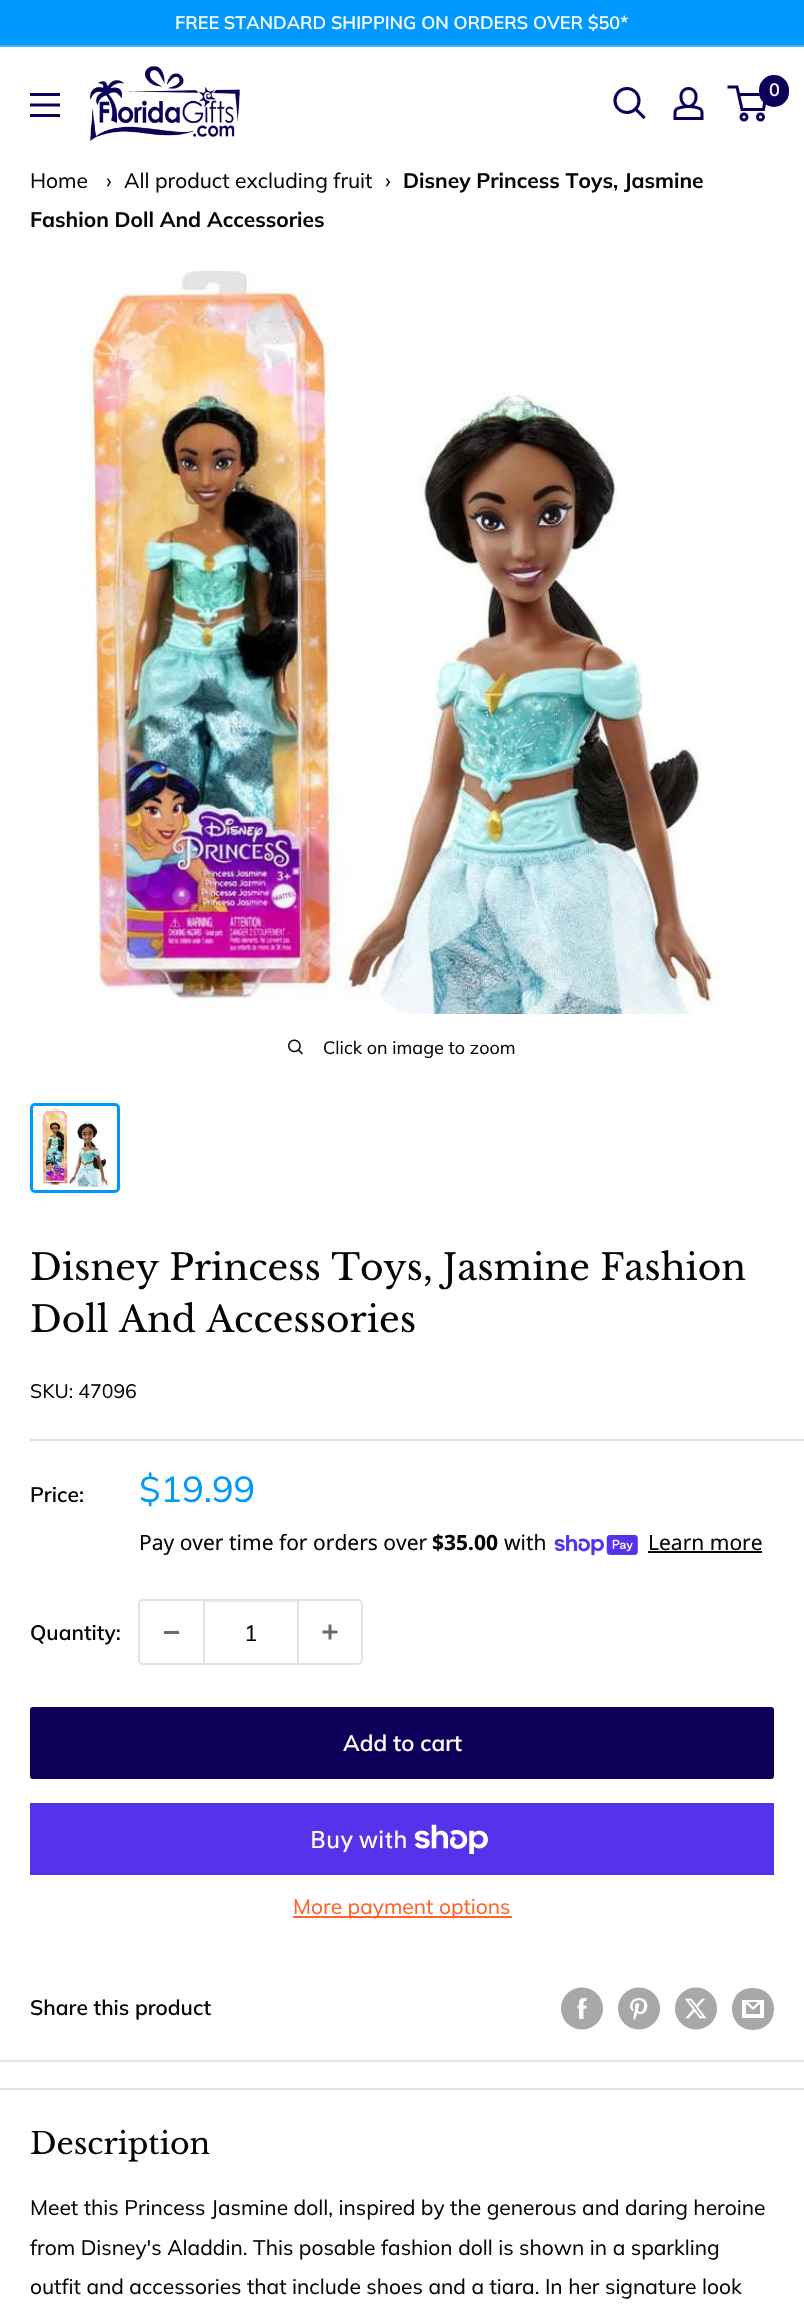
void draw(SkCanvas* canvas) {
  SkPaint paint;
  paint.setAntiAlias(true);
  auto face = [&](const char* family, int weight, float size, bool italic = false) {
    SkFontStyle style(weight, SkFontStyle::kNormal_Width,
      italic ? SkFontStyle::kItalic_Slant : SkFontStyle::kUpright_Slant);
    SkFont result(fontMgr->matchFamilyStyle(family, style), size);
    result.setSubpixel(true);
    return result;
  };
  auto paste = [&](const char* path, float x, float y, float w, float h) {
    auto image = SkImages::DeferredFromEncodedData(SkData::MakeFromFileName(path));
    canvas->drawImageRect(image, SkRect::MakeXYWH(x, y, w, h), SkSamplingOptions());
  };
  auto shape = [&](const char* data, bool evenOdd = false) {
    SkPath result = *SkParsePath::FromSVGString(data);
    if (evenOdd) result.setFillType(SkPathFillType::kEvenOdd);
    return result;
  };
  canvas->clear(0xffffffff);
  paint.setColor(0xff0099ff);
  canvas->drawRect(SkRect::MakeXYWH(0, 0, 804, 45), paint);
  paint.setColor(0xff46aff5);
  canvas->drawRect(SkRect::MakeXYWH(0, 45, 804, 2), paint);
  paste("img/1.png", 90, 66, 150, 75);
  paint.setStroke(true);
  paint.setStrokeWidth(3.1f);
  paint.setStrokeCap(SkPaint::kSquare_Cap);
  paint.setColor(0xff0c005b);
  canvas->drawPath(shape("M643.5 117L635.5 109"), paint);
  paint.setStrokeCap(SkPaint::kButt_Cap);
  canvas->drawCircle(627, 100.5f, 12, paint);
  paste("img/2.png", 673, 87, 31, 33);
  paint.setStrokeWidth(3);
  canvas->drawCircle(744, 117, 3, paint);
  canvas->drawCircle(760.5f, 117, 3, paint);
  canvas->drawPath(shape("M738.5 94.5H766L763.5 109.5H742L737 87H727.5"), paint);
  paint.setStroke(false);
  canvas->drawRoundRect(SkRect::MakeXYWH(759, 75, 30, 32), 15, 15, paint);
  paste("img/3.png", 30, 93, 30, 24);
  paste("img/4.png", 78, 270, 646, 744);
  paste("img/5.png", 288, 1039, 15, 16);
  paint.setStroke(true);
  paint.setColor(0xff0099ff);
  canvas->drawRoundRect(SkRect::MakeXYWH(31.5f, 1104.5f, 87, 87), 3.5f, 3.5f, paint);
  paste("img/6.png", 41, 1108, 67, 79);
  paint.setStroke(false);
  paint.setColor(0xffe7e2de);
  canvas->drawRect(SkRect::MakeXYWH(0, 2060, 804, 2), paint);
  canvas->drawRect(SkRect::MakeXYWH(30, 1439, 774, 2), paint);
  paste("img/7.png", 554, 1535, 84, 21);
  paint.setColor(0xff060606);
  canvas->drawRect(SkRect::MakeXYWH(648, 1551, 114, 2), paint);
  paint.setStroke(true);
  paint.setStrokeWidth(2);
  paint.setColor(0xffe7e2de);
  canvas->drawRoundRect(SkRect::MakeXYWH(139, 1600, 223, 64), 4, 4, paint);
  paint.setStroke(false);
  {
    const struct { float x, y, w, h; SkColor color; } items[] = {
      {164, 1631, 15, 3, 0xff6a6a6a},
      {204, 1601, 93, 2, 0xfff5f3f2},
      {297, 1601, 2, 63, 0xffe7e2de},
      {203, 1601, 2, 63, 0xffe7e2de},
    };
    for (auto [x, y, w, h, color] : items) {
      paint.setColor(color);
      canvas->drawRect(SkRect::MakeXYWH(x, y, w, h), paint);
    }
  }
  paste("img/8.png", 322, 1624, 16, 16);
  paint.setColor(0xff0c005b);
  canvas->drawRoundRect(SkRect::MakeXYWH(30, 1707, 744, 72), 3, 3, paint);
  paint.setColor(0xff5433eb);
  canvas->drawRect(SkRect::MakeXYWH(30, 1803, 744, 72), paint);
  paste("img/9.png", 414, 1824, 74, 30);
  paint.setColor(0xffff6128);
  canvas->drawRect(SkRect::MakeXYWH(293, 1916, 219, 2), paint);
  paste("img/10.png", 561, 1987, 42, 43);
  paste("img/11.png", 618, 1987, 42, 43);
  paste("img/12.png", 675, 1987, 42, 43);
  paint.setColor(0xffa8a8a8);
  canvas->drawPath(shape("M753 2030C725 2030 725 1987 753 1988C781 1988 781 2030 753 2030ZM748 2002H758L753 2007ZM760 2004V2014H746V2004L753 2010ZM764 2000H742V2018H764Z"), paint);
  paint.setColor(0xffe7e2de);
  canvas->drawRect(SkRect::MakeXYWH(0, 2088, 804, 2), paint);
  auto f0 = face("Muli", 600, 18);
  paint.setColor(0xffffffff);
  canvas->drawString("FREE STANDARD SHIPPING ON ORDERS OVER $50*", 175, 29, f0, paint);
  canvas->drawString("0", 769, 96, f0, paint);
  auto f1 = face("Muli", 400, 21);
  paint.setColor(0xff060606);
  {
    const struct { const char* s; float x, y; } items[] = {
      {"Home", 30, 188},
      {"›", 106, 188},
      {"All product excluding fruit", 124, 188},
      {"›", 385, 188},
    };
    for (auto [s, x, y] : items) {
      canvas->drawString(s, x, y, f1, paint);
    }
  }
  auto f2 = face("Muli", 700, 21);
  canvas->drawString("Disney Princess Toys, Jasmine", 403, 188, f2, paint);
  canvas->drawString("Fashion Doll And Accessories", 30, 227, f2, paint);
  auto f3 = face("Muli", 400, 18);
  canvas->drawString("Click on image to zoom", 323, 1054, f3, paint);
  auto f4 = face("Libre Baskerville", 400, 36);
  canvas->drawString("Disney Princess Toys, Jasmine Fashion", 30, 1280, f4, paint);
  canvas->drawString("Doll And Accessories", 30, 1332, f4, paint);
  auto f5 = face("Muli", 400, 19.5f);
  canvas->drawString("SKU: 47096", 30, 1398, f5, paint);
  auto f6 = face("Muli", 600, 21);
  canvas->drawString("Price:", 30, 1502, f6, paint);
  auto f7 = face("Muli", 400, 36);
  paint.setColor(0xff0099ff);
  canvas->drawString("$19.99", 139, 1502, f7, paint);
  auto f8 = face("Noto Sans", 400, 21);
  paint.setColor(0xff060606);
  canvas->drawString("Pay over time for orders over", 139, 1550, f8, paint);
  auto f9 = face("Noto Sans", 700, 21);
  canvas->drawString("$35.00", 432, 1550, f9, paint);
  canvas->drawString("with", 504, 1550, f8, paint);
  canvas->drawString("Learn more", 648, 1550, f8, paint);
  canvas->drawString("Quantity:", 30, 1640, f6, paint);
  auto f10 = face("Muli", 400, 22.5f);
  canvas->drawString("1", 244, 1641, f10, paint);
  auto f11 = face("Muli", 600, 22.5f);
  paint.setColor(0xffffffff);
  canvas->drawString("Add to cart", 343, 1751, f11, paint);
  auto f12 = face("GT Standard", 400, 24);
  canvas->drawString("Buy with", 310, 1848, f12, paint);
  paint.setColor(0xffff6128);
  canvas->drawString("More payment options", 293, 1914, f1, paint);
  paint.setColor(0xff060606);
  canvas->drawString("Share this product", 30, 2015, f6, paint);
  auto f13 = face("Libre Baskerville", 400, 30);
  canvas->drawString("Description", 30, 2154, f13, paint);
  {
    const struct { const char* s; float x, y; } items[] = {
      {"Meet this Princess Jasmine doll, inspired by the generous and daring heroine", 30, 2215},
      {"from Disney's Aladdin. This posable fashion doll is shown in a sparkling", 30, 2255},
      {"outfit and accessories that include shoes and a tiara. In her signature look", 30, 2294},
    };
    for (auto [s, x, y] : items) {
      canvas->drawString(s, x, y, f1, paint);
    }
  }
}
